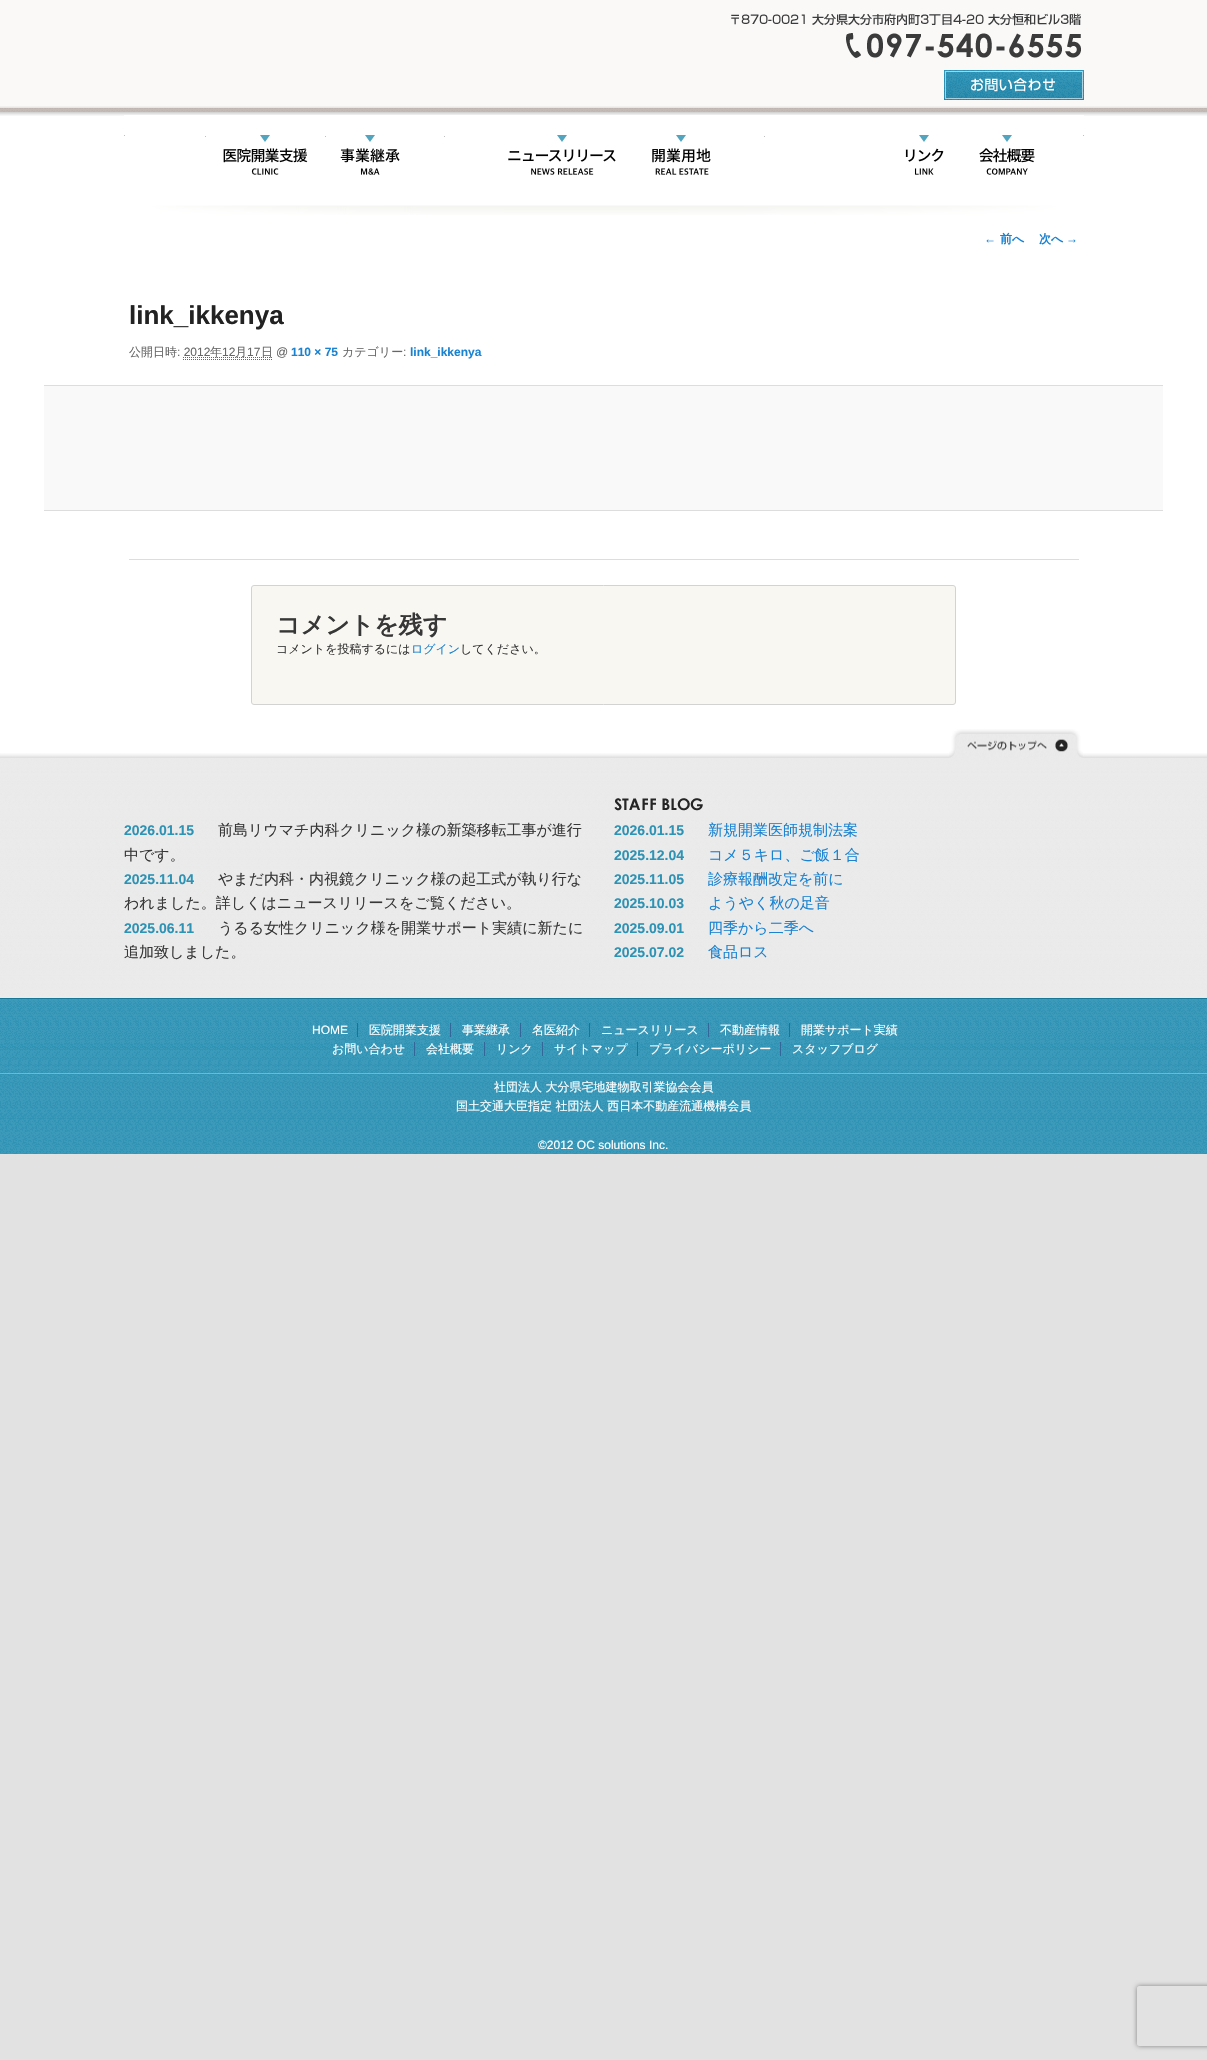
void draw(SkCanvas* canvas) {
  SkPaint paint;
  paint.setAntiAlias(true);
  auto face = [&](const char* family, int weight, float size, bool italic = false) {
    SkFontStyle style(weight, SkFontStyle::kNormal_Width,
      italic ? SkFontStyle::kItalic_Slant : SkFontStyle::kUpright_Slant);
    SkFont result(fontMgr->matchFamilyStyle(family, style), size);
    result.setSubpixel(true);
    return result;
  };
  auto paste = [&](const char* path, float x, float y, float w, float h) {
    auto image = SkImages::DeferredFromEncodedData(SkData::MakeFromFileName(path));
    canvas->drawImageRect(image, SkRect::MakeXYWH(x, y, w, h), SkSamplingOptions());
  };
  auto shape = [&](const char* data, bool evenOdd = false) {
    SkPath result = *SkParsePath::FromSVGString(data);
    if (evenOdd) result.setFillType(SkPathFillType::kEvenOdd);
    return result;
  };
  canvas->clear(0xffe2e2e2);
  paint.setColor(0xffffffff);
  canvas->drawRect(SkRect::MakeXYWH(0, 116, 1207, 642), paint);
  paste("img/1.png", 0, 0, 1207, 116);
  paste("img/2.png", 731, 13, 350, 45);
  paste("img/3.png", 944, 70, 140, 30);
  paste("img/4.png", 124, 115, 960, 100);
  paste("img/5.png", 223, 135, 85, 40);
  paste("img/6.png", 340, 135, 60, 40);
  paste("img/7.png", 508, 135, 108, 40);
  paste("img/8.png", 652, 135, 59, 40);
  paste("img/9.png", 905, 135, 39, 40);
  paste("img/10.png", 979, 135, 56, 40);
  paint.setColor(0xffdddddd);
  canvas->drawRect(SkRect::MakeXYWH(129, 559, 950, 1), paint);
  paint.setStroke(true);
  paint.setStrokeWidth(1);
  paint.setColor(0xff666666);
  paint.setPathEffect(SkDashPathEffect::Make({{1, 1}}, 0));
  canvas->drawPath(shape("M183 359.5H273"), paint);
  paint.setPathEffect(nullptr);
  paint.setPathEffect(SkDashPathEffect::Make({{1, 1}}, 0));
  canvas->drawPath(shape("M183 357.5H272.5"), paint);
  paint.setPathEffect(nullptr);
  paint.setStroke(false);
  {
    const struct { float x, y, w, h; SkColor color; } items[] = {
      {44, 386, 1119, 124, 0xfff9f9f9},
      {44, 385, 1119, 1, 0xffdddddd},
      {44, 510, 1119, 1, 0xffdddddd},
    };
    for (auto [x, y, w, h, color] : items) {
      paint.setColor(color);
      canvas->drawRect(SkRect::MakeXYWH(x, y, w, h), paint);
    }
  }
  paint.setColor(0xfff9f7f2);
  canvas->drawRoundRect(SkRect::MakeXYWH(251.5f, 585.5f, 704, 119), 2.5f, 2.5f, paint);
  paint.setStroke(true);
  paint.setColor(0xffd3d3d3);
  canvas->drawRoundRect(SkRect::MakeXYWH(251.5f, 585.5f, 704, 119), 2.5f, 2.5f, paint);
  paste("img/11.png", 0, 753, 1207, 401);
  paste("img/12.png", 949, 729, 134, 29);
  paste("img/13.png", 614, 798, 89, 13);
  paint.setStroke(false);
  {
    const struct { float x, y, w, h; SkColor color; } items[] = {
      {357, 1023, 1, 14, 0xff336699},
      {450, 1023, 1, 14, 0xff336699},
      {520, 1023, 1, 14, 0xff336699},
      {589, 1023, 1, 14, 0xff336699},
      {708, 1023, 1, 14, 0xff336699},
      {789, 1023, 1, 14, 0xff336699},
      {414, 1042, 1, 14, 0xff336699},
      {484, 1042, 1, 14, 0xff336699},
      {542, 1042, 1, 14, 0xff336699},
      {637, 1042, 1, 14, 0xff336699},
      {780, 1042, 1, 14, 0xff336699},
    };
    for (auto [x, y, w, h, color] : items) {
      paint.setColor(color);
      canvas->drawRect(SkRect::MakeXYWH(x, y, w, h), paint);
    }
  }
  canvas->save();
  canvas->clipPath(shape("M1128 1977H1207V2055H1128ZM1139 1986H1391C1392 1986 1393 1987 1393 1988V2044C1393 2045 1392 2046 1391 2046H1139C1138 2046 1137 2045 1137 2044V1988C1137 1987 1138 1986 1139 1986Z", true), true);
  paint.setColor(0xff808080);
  paint.setMaskFilter(SkMaskFilter::MakeBlur(kNormal_SkBlurStyle, 2.5f));
  canvas->drawRoundRect(SkRect::MakeXYWH(1137, 1986, 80, 60), 2, 2, paint);
  paint.setMaskFilter(nullptr);
  canvas->restore();
  auto f0 = face("Liberation Sans", 700, 12);
  paint.setColor(0xff1982d1);
  canvas->drawString("←", 984, 243, f0, paint);
  auto f1 = face("WenQuanYi Zen Hei", 700, 12);
  canvas->drawString("前へ", 1000, 243, f1, paint);
  canvas->drawString("次へ", 1039, 243, f1, paint);
  canvas->drawString("→", 1066, 243, f0, paint);
  auto f2 = face("Liberation Sans", 700, 26);
  paint.setColor(0xff222222);
  canvas->drawString("link_ikkenya", 129, 324, f2, paint);
  auto f3 = face("WenQuanYi Zen Hei", 500, 12);
  paint.setColor(0xff666666);
  canvas->drawString("公開日時", 129, 356, f3, paint);
  auto f4 = face("Liberation Sans", 400, 12);
  canvas->drawString(": 2012", 177, 356, f4, paint);
  canvas->drawString("年", 210, 356, f3, paint);
  canvas->drawString("12", 222, 356, f4, paint);
  canvas->drawString("月", 235, 356, f3, paint);
  canvas->drawString("17", 247, 356, f4, paint);
  canvas->drawString("日", 261, 356, f3, paint);
  canvas->drawString("@", 276, 356, f4, paint);
  paint.setColor(0xff1982d1);
  canvas->drawString("110 × 75", 291, 356, f0, paint);
  paint.setColor(0xff666666);
  canvas->drawString("カテゴリー", 342, 356, f3, paint);
  canvas->drawString(":", 403, 356, f4, paint);
  paint.setColor(0xff1982d1);
  canvas->drawString("link_ikkenya", 410, 356, f0, paint);
  auto f5 = face("WenQuanYi Zen Hei", 700, 24);
  paint.setColor(0xff373737);
  canvas->drawString("コメントを残す", 276, 633, f5, paint);
  canvas->drawString("コメントを投稿するには", 276, 653, f3, paint);
  paint.setColor(0xff1982d1);
  canvas->drawString("ログイン", 411, 653, f3, paint);
  paint.setColor(0xff373737);
  canvas->drawString("してください。", 460, 653, f3, paint);
  auto f6 = face("Liberation Sans", 700, 14);
  paint.setColor(0xff2d92b4);
  canvas->drawString("2026.01.15", 124, 835, f6, paint);
  auto f7 = face("WenQuanYi Zen Hei", 500, 15);
  paint.setColor(0xff373737);
  canvas->drawString("前島リウマチ内科クリニック様の新築移転工事が進行", 218, 835, f7, paint);
  canvas->drawString("中です。", 124, 860, f7, paint);
  paint.setColor(0xff2d92b4);
  canvas->drawString("2025.11.04", 124, 884, f6, paint);
  paint.setColor(0xff373737);
  canvas->drawString("やまだ内科・内視鏡クリニック様の起工式が執り行な", 218, 884, f7, paint);
  canvas->drawString("われました。詳しくはニュースリリースをご覧ください。", 124, 908, f7, paint);
  paint.setColor(0xff2d92b4);
  canvas->drawString("2025.06.11", 124, 933, f6, paint);
  paint.setColor(0xff373737);
  canvas->drawString("うるる女性クリニック様を開業サポート実績に新たに", 218, 933, f7, paint);
  canvas->drawString("追加致しました。", 124, 957, f7, paint);
  paint.setColor(0xff2d92b4);
  canvas->drawString("2026.01.15", 614, 835, f6, paint);
  paint.setColor(0xff1982d1);
  canvas->drawString("新規開業医師規制法案", 708, 835, f7, paint);
  paint.setColor(0xff2d92b4);
  canvas->drawString("2025.12.04", 614, 860, f6, paint);
  paint.setColor(0xff1982d1);
  canvas->drawString("コメ５キロ、ご飯１合", 708, 860, f7, paint);
  paint.setColor(0xff2d92b4);
  canvas->drawString("2025.11.05", 614, 884, f6, paint);
  paint.setColor(0xff1982d1);
  canvas->drawString("診療報酬改定を前に", 708, 884, f7, paint);
  paint.setColor(0xff2d92b4);
  canvas->drawString("2025.10.03", 614, 908, f6, paint);
  paint.setColor(0xff1982d1);
  canvas->drawString("ようやく秋の足音", 708, 908, f7, paint);
  paint.setColor(0xff2d92b4);
  canvas->drawString("2025.09.01", 614, 933, f6, paint);
  paint.setColor(0xff1982d1);
  canvas->drawString("四季から二季へ", 708, 933, f7, paint);
  paint.setColor(0xff2d92b4);
  canvas->drawString("2025.07.02", 614, 957, f6, paint);
  paint.setColor(0xff1982d1);
  canvas->drawString("食品ロス", 708, 957, f7, paint);
  paint.setColor(0xffffffff);
  canvas->drawString("HOME", 312, 1034, f4, paint);
  {
    const struct { const char* s; float x, y; } items[] = {
      {"医院開業支援", 369, 1034},
      {"事業継承", 462, 1034},
      {"名医紹介", 532, 1034},
      {"ニュースリリース", 601, 1034},
      {"不動産情報", 720, 1034},
      {"開業サポート実績", 801, 1034},
      {"お問い合わせ", 332, 1053},
      {"会社概要", 426, 1053},
      {"リンク", 496, 1053},
      {"サイトマップ", 554, 1053},
      {"プライバシーポリシー", 649, 1053},
      {"スタッフブログ", 792, 1053},
      {"社団法人 大分県宅地建物取引業協会会員", 494, 1091},
      {"国土交通大臣指定 社団法人 西日本不動産流通機構会員", 456, 1110},
    };
    for (auto [s, x, y] : items) {
      canvas->drawString(s, x, y, f3, paint);
    }
  }
  canvas->drawString("©2012 OC solutions Inc.", 538, 1149, f4, paint);
}
